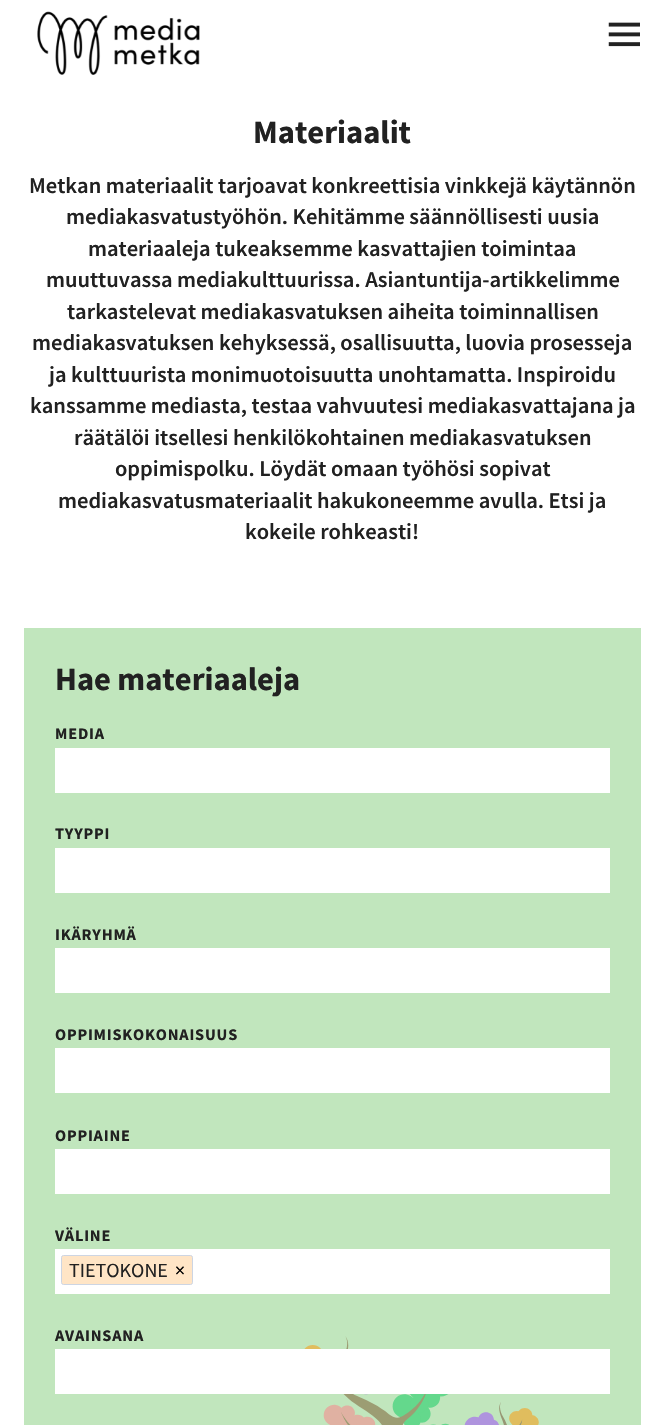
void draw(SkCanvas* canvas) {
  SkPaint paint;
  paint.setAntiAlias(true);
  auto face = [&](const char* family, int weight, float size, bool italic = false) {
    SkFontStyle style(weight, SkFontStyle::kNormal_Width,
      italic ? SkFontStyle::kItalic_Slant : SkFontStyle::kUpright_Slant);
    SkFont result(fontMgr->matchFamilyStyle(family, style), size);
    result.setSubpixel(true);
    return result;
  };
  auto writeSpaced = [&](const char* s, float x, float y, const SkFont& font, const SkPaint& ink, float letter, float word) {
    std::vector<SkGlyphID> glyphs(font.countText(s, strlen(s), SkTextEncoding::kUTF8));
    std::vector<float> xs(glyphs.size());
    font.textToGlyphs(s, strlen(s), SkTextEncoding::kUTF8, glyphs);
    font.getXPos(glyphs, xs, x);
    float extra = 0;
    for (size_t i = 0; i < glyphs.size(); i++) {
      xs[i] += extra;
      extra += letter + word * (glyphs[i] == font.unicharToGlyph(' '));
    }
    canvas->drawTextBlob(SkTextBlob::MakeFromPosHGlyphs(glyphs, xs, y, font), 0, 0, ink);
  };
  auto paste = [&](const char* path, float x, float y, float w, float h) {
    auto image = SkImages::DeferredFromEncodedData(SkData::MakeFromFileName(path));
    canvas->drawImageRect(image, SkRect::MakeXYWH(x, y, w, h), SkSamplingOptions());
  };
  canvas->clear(0xffffffff);
  paste("img/1.png", 37, 11, 163, 64);
  paste("img/2.png", 608, 22, 32, 25);
  {
    const struct { float x, y, w, h; SkColor color; } items[] = {
      {24, 628, 617, 797, 0xffc1e6bd},
      {55, 748, 555, 45, 0xffffffff},
      {55, 848, 555, 45, 0xffffffff},
      {55, 948, 555, 45, 0xffffffff},
      {55, 1048, 555, 45, 0xffffffff},
      {55, 1149, 555, 45, 0xffffffff},
      {55, 1249, 555, 45, 0xffffffff},
    };
    for (auto [x, y, w, h, color] : items) {
      paint.setColor(color);
      canvas->drawRect(SkRect::MakeXYWH(x, y, w, h), paint);
    }
  }
  paint.setColor(0xffffe5c6);
  canvas->drawRoundRect(SkRect::MakeXYWH(61.5f, 1255.5f, 131, 29), 2, 2, paint);
  paint.setStroke(true);
  paint.setStrokeWidth(1);
  paint.setColor(0xffcdd5e3);
  canvas->drawRoundRect(SkRect::MakeXYWH(61.5f, 1255.5f, 131, 29), 2, 2, paint);
  paste("img/3.png", 304, 1336, 235, 89);
  paint.setStroke(false);
  paint.setColor(0xffffffff);
  canvas->drawRect(SkRect::MakeXYWH(55, 1349, 555, 45), paint);
  auto f0 = face("Source Sans Pro", 700, 32.5f);
  paint.setColor(0xff212121);
  canvas->drawString("Materiaalit", 253, 143, f0, paint);
  auto f1 = face("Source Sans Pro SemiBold", 600, 22.5f);
  {
    const struct { const char* s; float x, y; } items[] = {
      {"Metkan materiaalit tarjoavat konkreettisia vinkkejä käytännön", 29, 193},
      {"mediakasvatustyöhön. Kehitämme säännöllisesti uusia", 66, 224},
      {"materiaaleja tukeaksemme kasvattajien toimintaa", 88, 256},
      {"muuttuvassa mediakulttuurissa. Asiantuntija-artikkelimme", 46, 287},
      {"tarkastelevat mediakasvatuksen aiheita toiminnallisen", 67, 319},
      {"mediakasvatuksen kehyksessä, osallisuutta, luovia prosesseja", 32, 350},
      {"ja kulttuurista monimuotoisuutta unohtamatta. Inspiroidu", 49, 382},
      {"kanssamme mediasta, testaa vahvuutesi mediakasvattajana ja", 30, 413},
      {"räätälöi itsellesi henkilökohtainen mediakasvatuksen", 74, 445},
      {"oppimispolku. Löydät omaan työhösi sopivat", 115, 476},
      {"mediakasvatusmateriaalit hakukoneemme avulla. Etsi ja", 58, 508},
      {"kokeile rohkeasti!", 245, 539},
    };
    for (auto [s, x, y] : items) {
      canvas->drawString(s, x, y, f1, paint);
    }
  }
  canvas->drawString("Hae materiaaleja", 55, 690, f0, paint);
  auto f2 = face("Source Sans Pro", 700, 16.25f);
  {
    const struct { const char* s; float x, y; } items[] = {
      {"MEDIA", 55, 739},
      {"TYYPPI", 55, 839},
      {"IKÄRYHMÄ", 55, 940},
      {"OPPIMISKOKONAISUUS", 55, 1040},
      {"OPPIAINE", 55, 1141},
      {"VÄLINE", 55, 1241},
    };
    for (auto [s, x, y] : items) {
      writeSpaced(s, x, y, f2, paint, 0.8f, 0);
    }
  }
  auto f3 = face("Source Sans Pro", 400, 20);
  canvas->drawString("TIETOKONE", 69, 1277, f3, paint);
  paint.setColor(0xff000000);
  canvas->drawString("×", 175, 1277, f3, paint);
  paint.setColor(0xff212121);
  writeSpaced("AVAINSANA", 55, 1341, f2, paint, 0.8f, 0);
}
